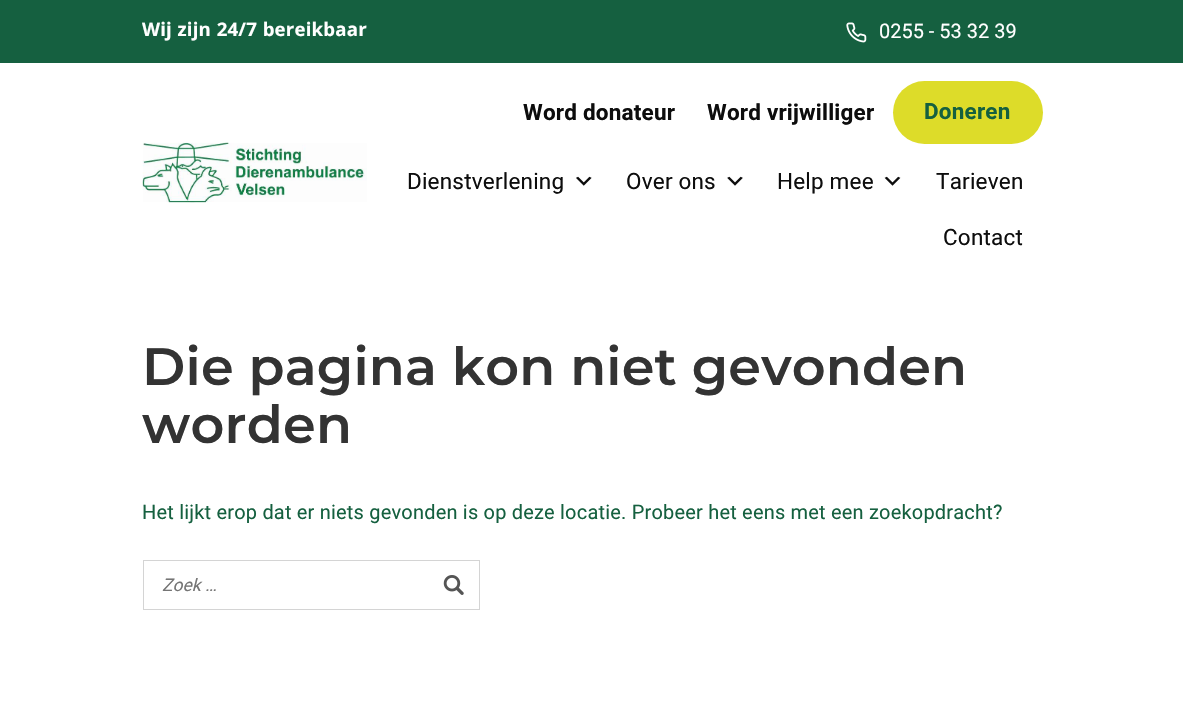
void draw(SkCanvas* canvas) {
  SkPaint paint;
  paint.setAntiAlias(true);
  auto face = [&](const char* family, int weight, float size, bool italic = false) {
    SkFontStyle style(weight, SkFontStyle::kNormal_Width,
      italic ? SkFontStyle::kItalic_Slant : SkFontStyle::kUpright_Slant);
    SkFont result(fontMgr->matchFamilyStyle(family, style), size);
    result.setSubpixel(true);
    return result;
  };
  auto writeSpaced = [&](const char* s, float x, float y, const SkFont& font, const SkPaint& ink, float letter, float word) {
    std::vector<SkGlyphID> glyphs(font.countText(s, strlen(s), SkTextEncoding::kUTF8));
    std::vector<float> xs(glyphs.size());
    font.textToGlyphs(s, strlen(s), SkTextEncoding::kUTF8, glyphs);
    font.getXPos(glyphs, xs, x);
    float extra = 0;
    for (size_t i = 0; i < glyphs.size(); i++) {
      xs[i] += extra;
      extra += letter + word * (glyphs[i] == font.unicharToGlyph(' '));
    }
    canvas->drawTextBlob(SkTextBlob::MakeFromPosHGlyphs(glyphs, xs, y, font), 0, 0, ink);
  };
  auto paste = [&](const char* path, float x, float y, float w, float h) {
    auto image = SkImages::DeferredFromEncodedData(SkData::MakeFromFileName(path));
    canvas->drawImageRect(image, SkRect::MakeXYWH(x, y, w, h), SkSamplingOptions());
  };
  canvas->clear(0xffffffff);
  paint.setColor(0xff156040);
  canvas->drawRect(SkRect::MakeXYWH(0, 0, 1183, 63), paint);
  paste("img/1.png", 846, 22, 21, 21);
  paste("img/2.png", 142, 142, 225, 61);
  paint.setColor(0xffdddc29);
  canvas->drawRoundRect(SkRect::MakeXYWH(893, 81, 150, 63), 31.5f, 31.5f, paint);
  paste("img/3.png", 576, 176, 16, 10);
  paste("img/4.png", 727, 176, 16, 10);
  paste("img/5.png", 884, 176, 17, 10);
  paint.setStroke(true);
  paint.setStrokeWidth(1);
  paint.setColor(0xffd4d4d4);
  canvas->drawRect(SkRect::MakeXYWH(143.5f, 560.5f, 336, 49), paint);
  paste("img/6.png", 443, 575, 21, 20);
  auto f0 = face("Khula", 700, 20);
  paint.setStroke(false);
  paint.setColor(0xffffffff);
  writeSpaced("Wij zijn 24/7 bereikbaar", 142, 36, f0, paint, 0.2f, 0);
  auto f1 = face("Roboto", 400, 20);
  canvas->drawString("0255 - 53 32 39", 879, 38, f1, paint);
  auto f2 = face("Roboto", 700, 22.5f);
  paint.setColor(0xff0d0d0d);
  writeSpaced("Word donateur", 523, 120, f2, paint, 0.2f, 0);
  writeSpaced("Word vrijwilliger", 707, 120, f2, paint, 0.2f, 0);
  paint.setColor(0xff15603f);
  writeSpaced("Doneren", 924, 119, f2, paint, 0.2f, 0);
  auto f3 = face("Roboto", 400, 22.5f);
  paint.setColor(0xff0d0d0d);
  {
    const struct { const char* s; float x, y; } items[] = {
      {"Dienstverlening", 407, 189},
      {"Over ons", 626, 189},
      {"Help mee", 777, 189},
      {"Tarieven", 936, 189},
      {"Contact", 943, 245},
    };
    for (auto [s, x, y] : items) {
      writeSpaced(s, x, y, f3, paint, 0.2f, 0);
    }
  }
  auto f4 = face("Montserrat", 600, 52.5f);
  paint.setColor(0xff333333);
  writeSpaced("Die pagina kon niet gevonden", 142, 385, f4, paint, 0.2f, 0);
  writeSpaced("worden", 142, 443, f4, paint, 0.2f, 0);
  paint.setColor(0xff15603f);
  writeSpaced("Het lijkt erop dat er niets gevonden is op deze locatie. Probeer het eens met een zoekopdracht?", 142, 519, f1, paint, 0.2f, 0);
  auto f5 = face("Roboto", 400, 17.5f, true);
  paint.setColor(0xff757575);
  canvas->drawString("Zoek …", 162, 591, f5, paint);
}
